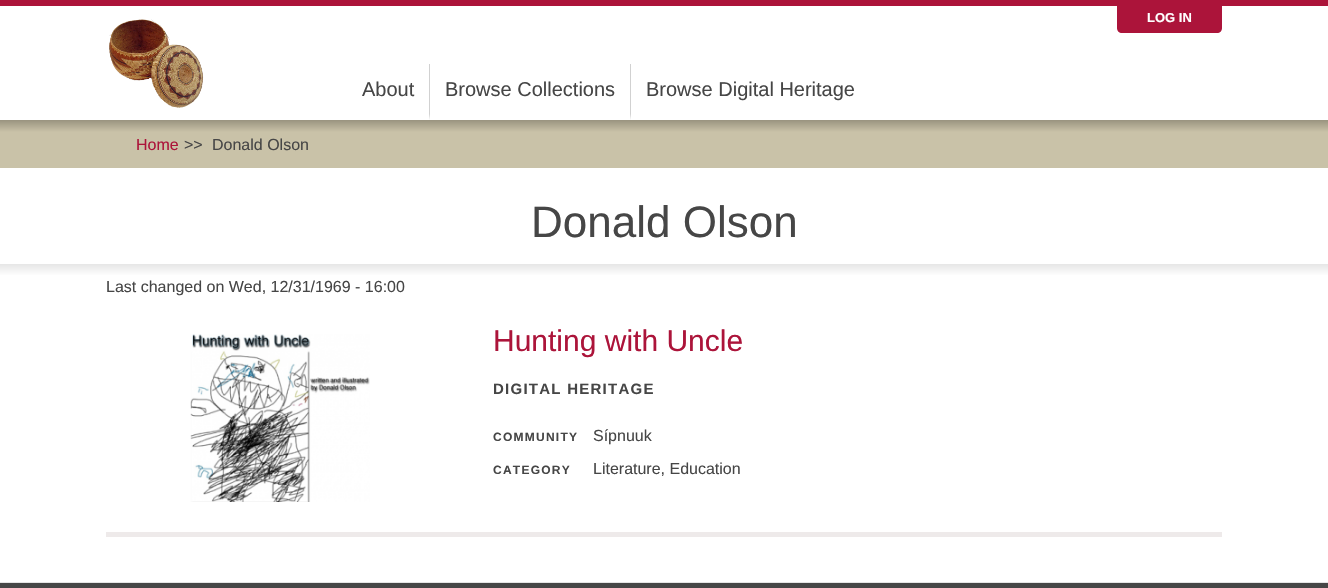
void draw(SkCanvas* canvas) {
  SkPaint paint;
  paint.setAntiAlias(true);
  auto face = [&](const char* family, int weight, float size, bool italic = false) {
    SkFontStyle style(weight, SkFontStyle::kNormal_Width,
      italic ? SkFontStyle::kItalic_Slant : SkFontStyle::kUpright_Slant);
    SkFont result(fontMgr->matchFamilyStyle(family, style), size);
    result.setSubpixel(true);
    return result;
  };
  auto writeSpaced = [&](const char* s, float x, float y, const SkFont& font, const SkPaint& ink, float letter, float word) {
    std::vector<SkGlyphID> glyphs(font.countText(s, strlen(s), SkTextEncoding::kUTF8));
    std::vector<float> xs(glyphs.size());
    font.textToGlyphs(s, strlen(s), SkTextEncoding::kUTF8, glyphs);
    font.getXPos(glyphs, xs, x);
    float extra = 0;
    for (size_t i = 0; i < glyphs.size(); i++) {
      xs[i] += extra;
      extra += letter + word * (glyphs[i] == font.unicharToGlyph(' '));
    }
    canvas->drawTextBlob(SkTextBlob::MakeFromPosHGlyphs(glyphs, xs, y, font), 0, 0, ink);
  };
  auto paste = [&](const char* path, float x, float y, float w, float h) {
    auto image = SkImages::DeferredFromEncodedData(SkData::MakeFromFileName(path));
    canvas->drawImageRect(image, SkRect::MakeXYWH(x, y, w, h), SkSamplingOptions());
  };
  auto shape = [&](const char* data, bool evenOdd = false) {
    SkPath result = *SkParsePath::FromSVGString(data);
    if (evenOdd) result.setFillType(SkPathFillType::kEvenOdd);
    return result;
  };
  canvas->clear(0xffffffff);
  paint.setColor(0xffac143a);
  canvas->drawRect(SkRect::MakeXYWH(0, 0, 1328, 6), paint);
  canvas->drawPath(shape("M1117 6H1222V28C1222 31 1220 33 1217 33H1122C1119 33 1117 31 1117 28Z"), paint);
  paste("img/1.png", 109, 19, 95, 89);
  paint.setColor(0xffd1d1d1);
  canvas->drawPath(shape("M430 64V120L429 114V64Z"), paint);
  canvas->drawPath(shape("M631 64V120L630 114V64Z"), paint);
  {
    const SkColor colors[] = {0xff99937f, 0xffc9c2a8};
    const float stops[] = {0, 1};
    const SkPoint ends[] = {{664, 120}, {664, 132}};
    paint.setShader(SkGradientShader::MakeLinear(ends, colors, stops, 2, SkTileMode::kClamp));
    paint.setAlpha(255);
  }
  canvas->drawRect(SkRect::MakeXYWH(0, 120, 1328, 12), paint);
  paint.setShader(nullptr);
  paint.setColor(0xffc9c2a8);
  canvas->drawRect(SkRect::MakeXYWH(0, 132, 1328, 36), paint);
  {
    const SkColor colors[] = {0xffe6e6e6, 0xffffffff};
    const float stops[] = {0, 1};
    const SkPoint ends[] = {{664, 264}, {664, 276}};
    paint.setShader(SkGradientShader::MakeLinear(ends, colors, stops, 2, SkTileMode::kClamp));
    paint.setAlpha(255);
  }
  canvas->drawRect(SkRect::MakeXYWH(0, 264, 1328, 11), paint);
  paint.setShader(nullptr);
  paint.setColor(0xffeeeaea);
  canvas->drawRect(SkRect::MakeXYWH(106, 532, 1116, 5), paint);
  paste("img/2.png", 190, 334, 180, 168);
  paint.setColor(0xff464646);
  canvas->drawRect(SkRect::MakeXYWH(0, 583, 1328, 5), paint);
  paint.setColor(0xffe5e5e5);
  canvas->drawRect(SkRect::MakeXYWH(0, 582, 1328, 1), paint);
  auto f0 = face("Liberation Sans", 700, 13);
  paint.setColor(0xffffffff);
  canvas->drawString("LOG IN", 1147, 22, f0, paint);
  auto f1 = face("Liberation Sans", 400, 20);
  paint.setColor(0xff464646);
  {
    const struct { const char* s; float x, y; } items[] = {
      {"About", 362, 96},
      {"Browse Collections", 445, 96},
      {"Browse Digital Heritage", 646, 96},
    };
    for (auto [s, x, y] : items) {
      canvas->drawString(s, x, y, f1, paint);
    }
  }
  auto f2 = face("Liberation Sans", 400, 16);
  paint.setColor(0xffac143a);
  canvas->drawString("Home", 136, 150, f2, paint);
  paint.setColor(0xff464646);
  canvas->drawString(">>", 184, 150, f2, paint);
  canvas->drawString("Donald Olson", 212, 150, f2, paint);
  auto f3 = face("Liberation Sans", 400, 44);
  canvas->drawString("Donald Olson", 531, 237, f3, paint);
  canvas->drawString("Last changed on Wed, 12/31/1969 - 16:00", 106, 292, f2, paint);
  auto f4 = face("Liberation Sans", 400, 30);
  paint.setColor(0xffac143a);
  canvas->drawString("Hunting with Uncle", 493, 351, f4, paint);
  auto f5 = face("Liberation Sans", 700, 15);
  paint.setColor(0xff464646);
  writeSpaced("DIGITAL HERITAGE", 493, 394, f5, paint, 1.25f, 0);
  auto f6 = face("Liberation Sans", 700, 12);
  writeSpaced("COMMUNITY", 493, 441, f6, paint, 1.25f, 0);
  canvas->drawString("Sípnuuk", 593, 441, f2, paint);
  writeSpaced("CATEGORY", 493, 474, f6, paint, 1.25f, 0);
  canvas->drawString("Literature, Education", 593, 474, f2, paint);
}
